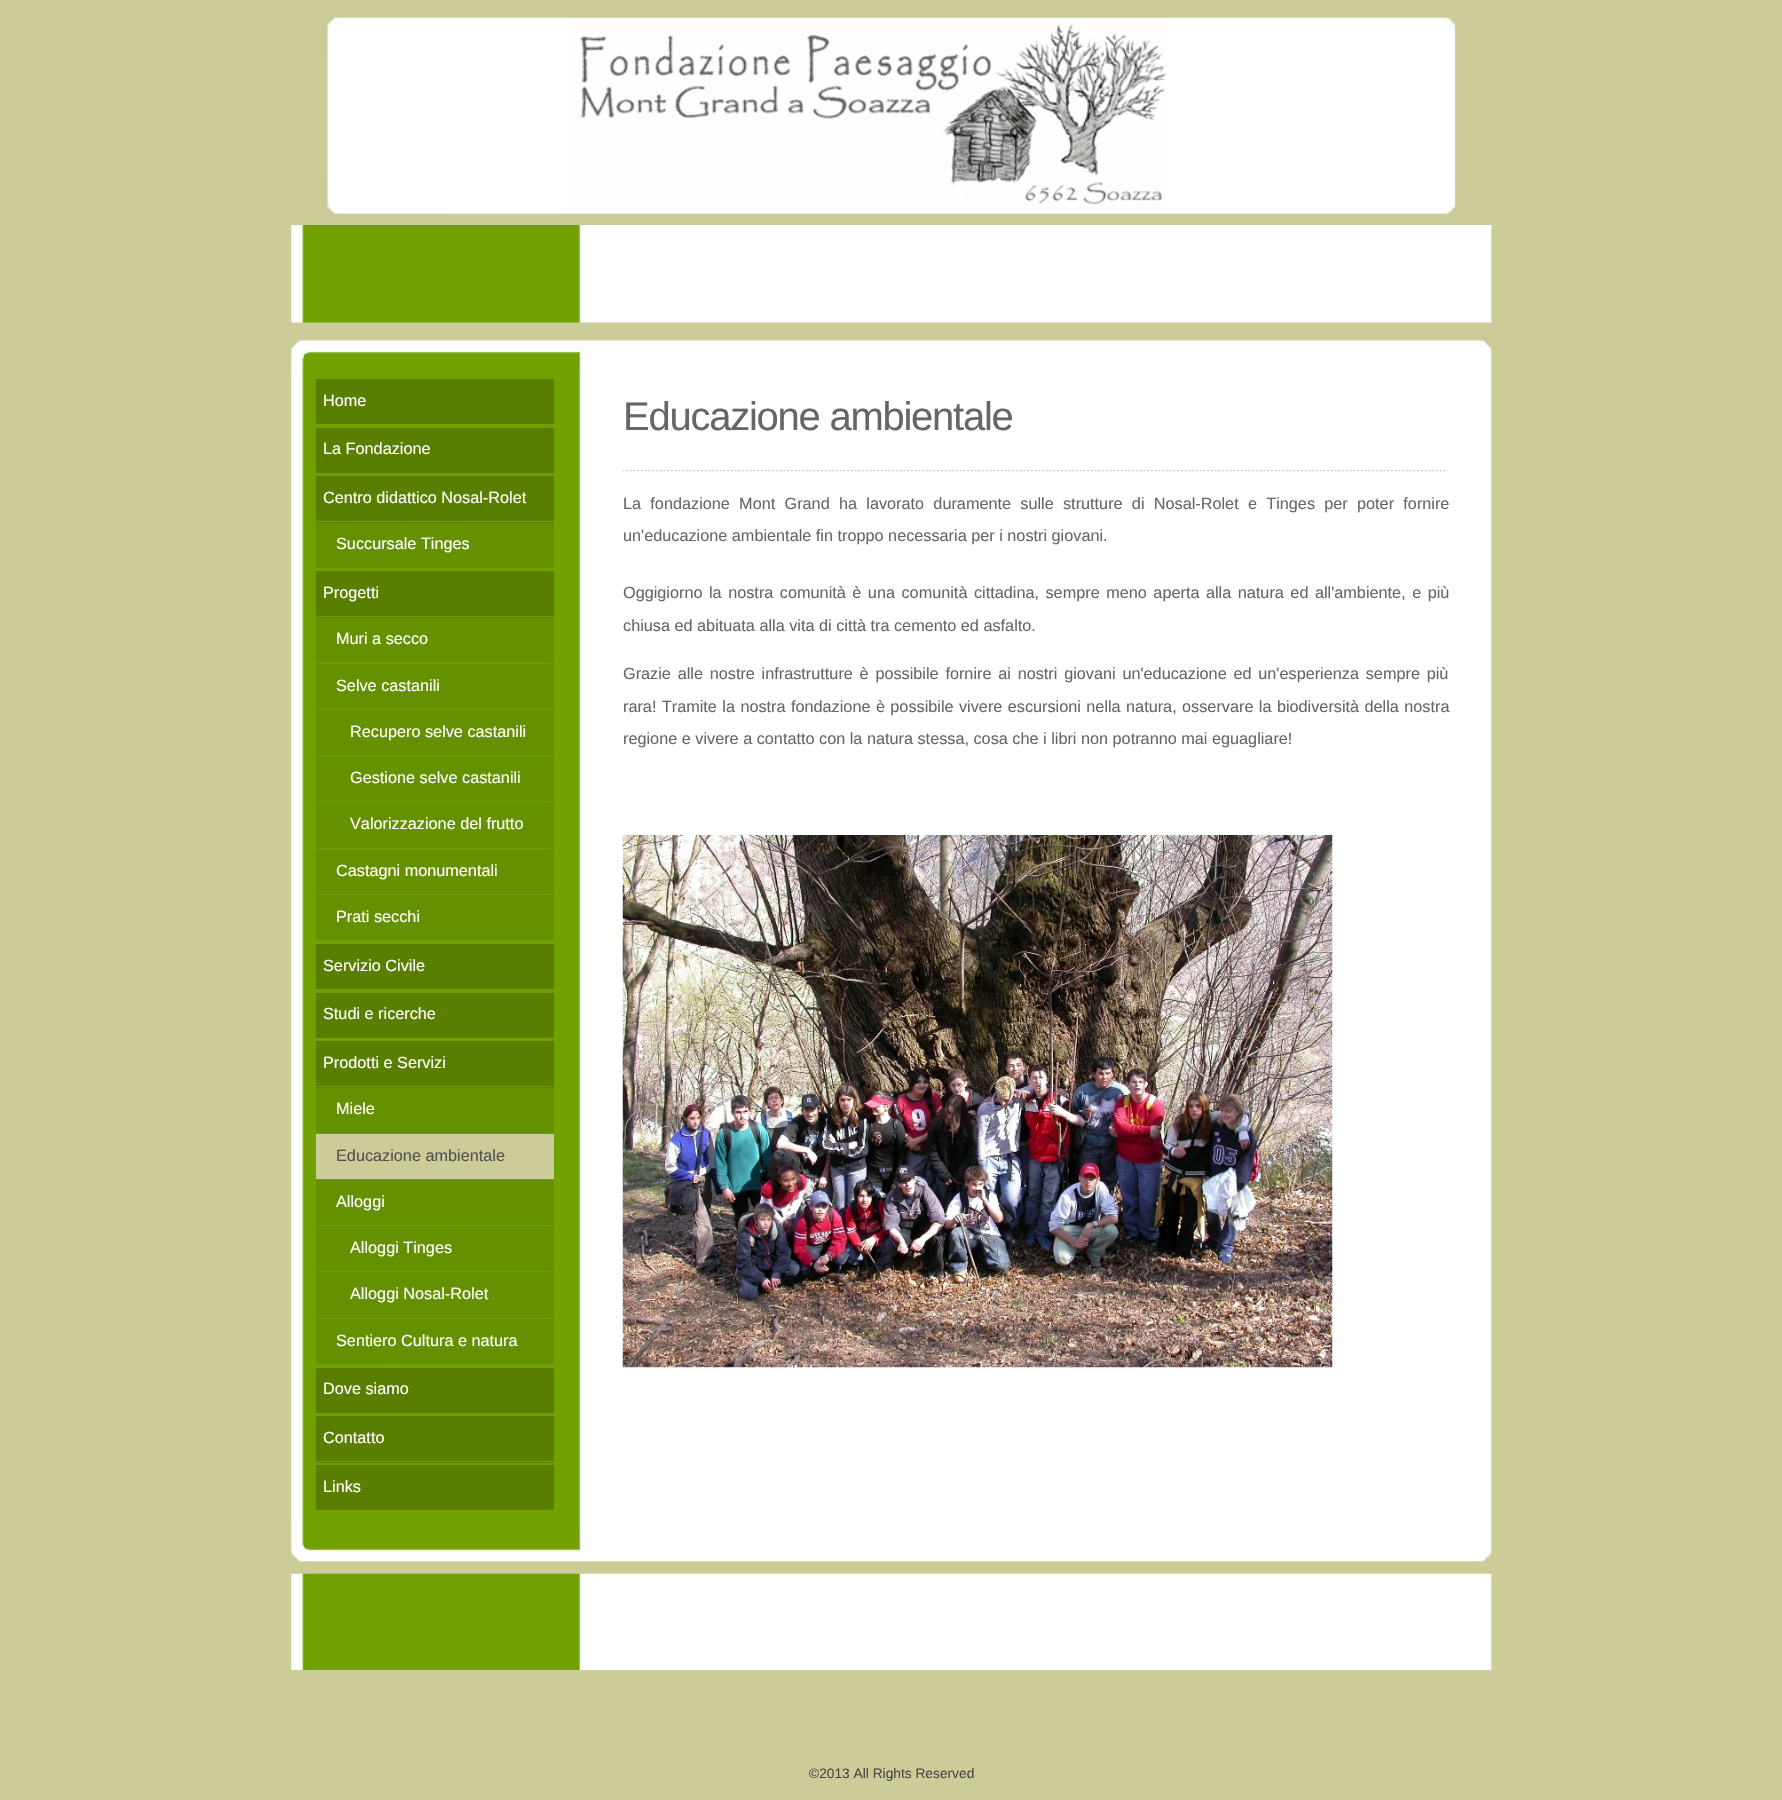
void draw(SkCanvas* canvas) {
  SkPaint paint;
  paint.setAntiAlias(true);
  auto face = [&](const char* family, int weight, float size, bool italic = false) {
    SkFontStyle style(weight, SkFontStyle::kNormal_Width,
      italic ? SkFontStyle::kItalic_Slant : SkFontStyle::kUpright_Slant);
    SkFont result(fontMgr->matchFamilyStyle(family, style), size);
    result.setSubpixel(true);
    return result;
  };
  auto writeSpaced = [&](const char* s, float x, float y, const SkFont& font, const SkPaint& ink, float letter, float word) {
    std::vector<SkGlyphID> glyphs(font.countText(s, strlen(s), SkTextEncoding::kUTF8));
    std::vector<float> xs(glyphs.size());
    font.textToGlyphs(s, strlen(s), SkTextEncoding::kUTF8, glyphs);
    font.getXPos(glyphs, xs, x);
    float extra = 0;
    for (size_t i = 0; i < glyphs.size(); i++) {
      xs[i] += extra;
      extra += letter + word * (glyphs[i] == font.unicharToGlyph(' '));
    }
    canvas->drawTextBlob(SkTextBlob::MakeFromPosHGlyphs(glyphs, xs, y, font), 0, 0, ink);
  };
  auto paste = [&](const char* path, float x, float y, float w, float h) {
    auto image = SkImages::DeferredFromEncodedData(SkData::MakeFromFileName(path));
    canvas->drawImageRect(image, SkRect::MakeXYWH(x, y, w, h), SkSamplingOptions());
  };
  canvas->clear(0xffcccc98);
  paste("img/1.png", 327, 17, 1129, 197);
  paste("img/2.png", 291, 225, 1201, 1445);
  paste("img/3.png", 291, 322, 1201, 52);
  paste("img/4.png", 291, 1524, 1201, 50);
  {
    const struct { float x, y, w, h; SkColor color; } items[] = {
      {316, 379, 238, 45, 0xff5a7f00},
      {316, 428, 238, 45, 0xff5a7f00},
      {316, 476, 238, 47, 0xff5a7f00},
      {316, 521, 238, 1, 0xff70a000},
      {316, 523, 238, 45, 0xff659100},
    };
    for (auto [x, y, w, h, color] : items) {
      paint.setColor(color);
      canvas->drawRect(SkRect::MakeXYWH(x, y, w, h), paint);
    }
  }
  paste("img/5.png", 622, 470, 826, 2);
  {
    const struct { float x, y, w, h; SkColor color; } items[] = {
      {316, 571, 238, 47, 0xff5a7f00},
      {316, 616, 238, 1, 0xff70a000},
      {316, 618, 238, 45, 0xff659100},
      {316, 664, 238, 45, 0xff659100},
      {316, 710, 238, 45, 0xff659100},
      {316, 756, 238, 92, 0xff659100},
      {316, 801, 238, 1, 0xff70a000},
      {316, 849, 238, 45, 0xff659100},
      {316, 895, 238, 45, 0xff659100},
      {316, 944, 238, 45, 0xff5a7f00},
      {316, 993, 238, 45, 0xff5a7f00},
      {316, 1041, 238, 47, 0xff5a7f00},
      {316, 1086, 238, 1, 0xff70a000},
      {316, 1088, 238, 45, 0xff659100},
      {316, 1134, 238, 45, 0xffcccc98},
      {316, 1180, 238, 45, 0xff659100},
      {316, 1226, 238, 92, 0xff659100},
      {316, 1271, 238, 1, 0xff70a000},
      {316, 1319, 238, 45, 0xff659100},
      {316, 1368, 238, 45, 0xff5a7f00},
    };
    for (auto [x, y, w, h, color] : items) {
      paint.setColor(color);
      canvas->drawRect(SkRect::MakeXYWH(x, y, w, h), paint);
    }
  }
  paste("img/6.png", 622, 835, 711, 533);
  {
    const struct { float x, y, w, h; SkColor color; } items[] = {
      {316, 1416, 238, 47, 0xff5a7f00},
      {316, 1461, 238, 1, 0xff70a000},
      {316, 1465, 238, 45, 0xff5a7f00},
    };
    for (auto [x, y, w, h, color] : items) {
      paint.setColor(color);
      canvas->drawRect(SkRect::MakeXYWH(x, y, w, h), paint);
    }
  }
  auto f0 = face("Liberation Sans", 400, 16.25f);
  paint.setColor(0xffffffff);
  {
    const struct { const char* s; float x, y; } items[] = {
      {"Home", 323, 406},
      {"La Fondazione", 323, 454},
      {"Centro didattico Nosal-Rolet", 323, 503},
      {"Succursale Tinges", 336, 549},
    };
    for (auto [s, x, y] : items) {
      canvas->drawString(s, x, y, f0, paint);
    }
  }
  auto f1 = face("Liberation Sans", 400, 40);
  paint.setColor(0xff666666);
  writeSpaced("Educazione ambientale", 623, 430, f1, paint, -1.25f, 0);
  writeSpaced("La fondazione Mont Grand ha lavorato duramente sulle strutture di Nosal-Rolet e Tinges per poter fornire", 623, 509, f0, paint, 0, 4.75f);
  canvas->drawString("un'educazione ambientale fin troppo necessaria per i nostri giovani.", 623, 541, f0, paint);
  paint.setColor(0xffffffff);
  {
    const struct { const char* s; float x, y; } items[] = {
      {"Progetti", 323, 598},
      {"Muri a secco", 336, 644},
      {"Selve castanili", 336, 691},
      {"Recupero selve castanili", 350, 737},
      {"Gestione selve castanili", 350, 783},
    };
    for (auto [s, x, y] : items) {
      canvas->drawString(s, x, y, f0, paint);
    }
  }
  paint.setColor(0xff666666);
  writeSpaced("Oggigiorno la nostra comunità è una comunità cittadina, sempre meno aperta alla natura ed all'ambiente, e più", 623, 598, f0, paint, 0, 2);
  canvas->drawString("chiusa ed abituata alla vita di città tra cemento ed asfalto.", 623, 631, f0, paint);
  writeSpaced("Grazie alle nostre infrastrutture è possibile fornire ai nostri giovani un'educazione ed un'esperienza sempre più", 623, 679, f0, paint, 0, 2.25f);
  writeSpaced("rara! Tramite la nostra fondazione è possibile vivere escursioni nella natura, osservare la biodiversità della nostra", 623, 712, f0, paint, 0, 0.9f);
  canvas->drawString("regione e vivere a contatto con la natura stessa, cosa che i libri non potranno mai eguagliare!", 623, 744, f0, paint);
  paint.setColor(0xffffffff);
  {
    const struct { const char* s; float x, y; } items[] = {
      {"Valorizzazione del frutto", 350, 829},
      {"Castagni monumentali", 336, 876},
      {"Prati secchi", 336, 922},
      {"Servizio Civile", 323, 971},
      {"Studi e ricerche", 323, 1019},
      {"Prodotti e Servizi", 323, 1068},
      {"Miele", 336, 1114},
    };
    for (auto [s, x, y] : items) {
      canvas->drawString(s, x, y, f0, paint);
    }
  }
  paint.setColor(0xff515151);
  canvas->drawString("Educazione ambientale", 336, 1161, f0, paint);
  paint.setColor(0xffffffff);
  {
    const struct { const char* s; float x, y; } items[] = {
      {"Alloggi", 336, 1207},
      {"Alloggi Tinges", 350, 1253},
      {"Alloggi Nosal-Rolet", 350, 1299},
      {"Sentiero Cultura e natura", 336, 1346},
      {"Dove siamo", 323, 1394},
      {"Contatto", 323, 1443},
      {"Links", 323, 1492},
    };
    for (auto [s, x, y] : items) {
      canvas->drawString(s, x, y, f0, paint);
    }
  }
  auto f2 = face("Liberation Sans", 400, 13.75f);
  paint.setColor(0xff484848);
  canvas->drawString("©2013 All Rights Reserved", 809, 1778, f2, paint);
}
